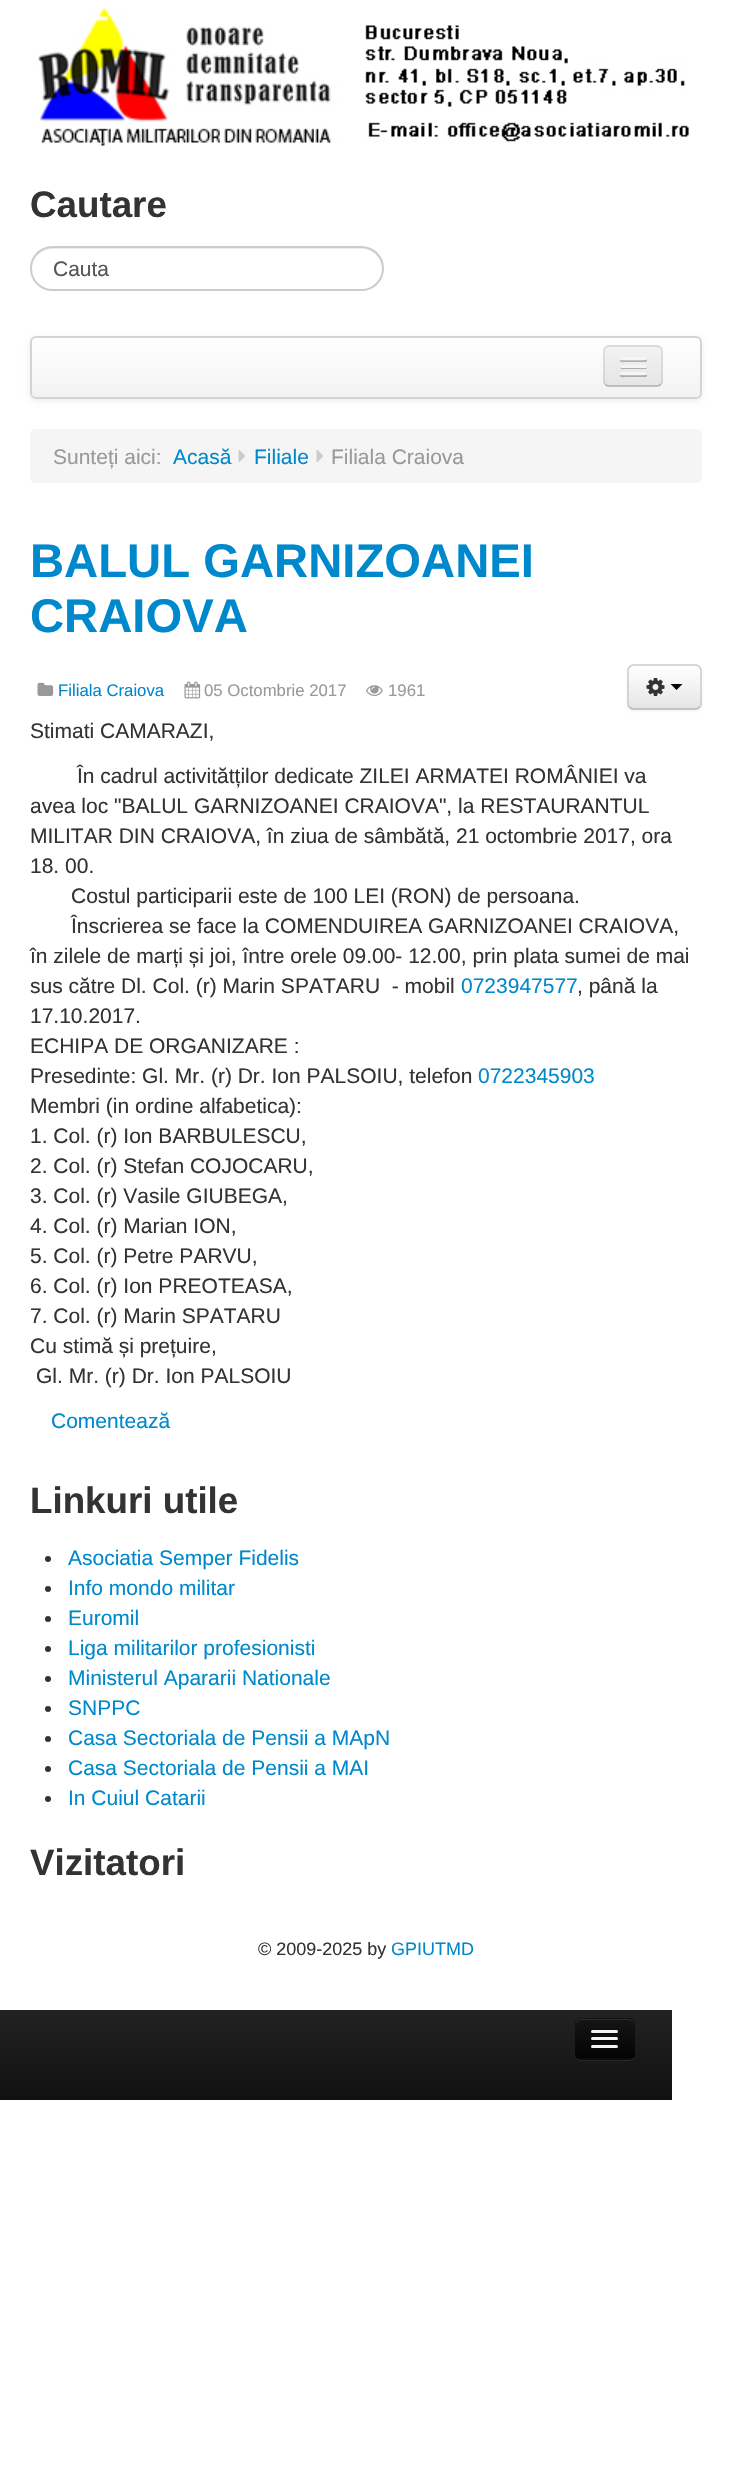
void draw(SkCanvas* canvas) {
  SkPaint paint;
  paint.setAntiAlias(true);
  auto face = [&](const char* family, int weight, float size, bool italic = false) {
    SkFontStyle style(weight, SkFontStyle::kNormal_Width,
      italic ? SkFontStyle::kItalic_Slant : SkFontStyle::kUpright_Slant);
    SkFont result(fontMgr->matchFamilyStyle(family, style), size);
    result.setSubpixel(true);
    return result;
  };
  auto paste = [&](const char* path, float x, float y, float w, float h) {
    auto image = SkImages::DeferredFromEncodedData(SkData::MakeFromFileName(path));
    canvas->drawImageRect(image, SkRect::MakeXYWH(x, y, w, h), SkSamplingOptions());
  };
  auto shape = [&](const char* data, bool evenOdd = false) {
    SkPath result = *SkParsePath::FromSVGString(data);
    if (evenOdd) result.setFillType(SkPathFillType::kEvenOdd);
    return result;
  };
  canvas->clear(0xffffffff);
  paste("img/1.png", 35, 7, 654, 139);
  paint.setColor(0xffececec);
  canvas->drawPath(shape("M52 249H362C373 249 382 258 382 270C382 274 381 278 379 282C381 278 383 274 383 269C383 257 374 248 362 248H53C41 248 32 257 32 269C32 258 41 249 52 249Z"), paint);
  paint.setStroke(true);
  paint.setStrokeWidth(2);
  paint.setColor(0xffcccccc);
  canvas->drawRoundRect(SkRect::MakeXYWH(31, 247, 352, 43), 21.5f, 21.5f, paint);
  paint.setStroke(false);
  paint.setColor(0x12000000);
  paint.setMaskFilter(SkMaskFilter::MakeBlur(kNormal_SkBlurStyle, 3));
  canvas->drawRoundRect(SkRect::MakeXYWH(30, 338, 672, 63), 6, 6, paint);
  paint.setMaskFilter(nullptr);
  canvas->save();
  canvas->clipPath(shape("M36 336H696C699.5 336 702 338.5 702 342V393C702 396.5 699.5 399 696 399H36C32.5 399 30 396.5 30 393V342C30 338.5 32.5 336 36 336Z"), true);
  {
    const SkColor colors[] = {0xffffffff, 0xfff2f2f2};
    const float stops[] = {0, 1};
    const SkPoint ends[] = {{366, 337}, {366, 398}};
    paint.setShader(SkGradientShader::MakeLinear(ends, colors, stops, 2, SkTileMode::kClamp));
    paint.setAlpha(255);
  }
  canvas->drawRect(SkRect::MakeXYWH(30, 338, 672, 60), paint);
  canvas->restore();
  paint.setStroke(true);
  paint.setShader(nullptr);
  paint.setColor(0xffd4d4d4);
  canvas->drawRoundRect(SkRect::MakeXYWH(31, 337, 670, 61), 5, 5, paint);
  paint.setStroke(false);
  paint.setColor(0xffededed);
  canvas->drawRoundRect(SkRect::MakeXYWH(603, 345, 60, 42), 6, 6, paint);
  canvas->save();
  canvas->clipPath(shape("M609 345H657C660.5 345 663 347.5 663 351V381C663 384.5 660.5 387 657 387H609C605.5 387 603 384.5 603 381V351C603 347.5 605.5 345 609 345Z"), true);
  {
    const SkColor colors[] = {0xfff2f2f2, 0xffe5e5e5};
    const float stops[] = {0, 1};
    const SkPoint ends[] = {{633, 347}, {633, 386}};
    paint.setShader(SkGradientShader::MakeLinear(ends, colors, stops, 2, SkTileMode::kClamp));
    paint.setAlpha(255);
  }
  canvas->drawRect(SkRect::MakeXYWH(603, 347, 60, 39), paint);
  canvas->restore();
  paint.setStroke(true);
  paint.setStrokeWidth(1.5f);
  paint.setShader(nullptr);
  paint.setColor(0x40000000);
  canvas->drawPath(shape("M660.5 384.5C659.5 385.5 658.5 386 657 386H609C607.5 386 606.5 385.5 605.5 384.5"), paint);
  paint.setColor(0x1a000000);
  canvas->drawPath(shape("M605.5 384.5C604.5 383.5 604 382.5 604 381V351C604 349.5 604.5 348.5 605.5 347.5C606.5 346.5 607.5 346 609 346H657C658.5 346 659.5 346.5 660.5 347.5C661.5 348.5 662 349.5 662 351V381C662 382.5 661.5 383.5 660.5 384.5"), paint);
  paint.setStroke(false);
  paint.setColor(0xffb2b2b2);
  canvas->drawPath(shape("M620 360C618.5 363 625.5 362 625.5 362H646C647 361.5 647.5 360 646.5 359L645 360C643 360.5 621 360.5 620 360Z"), paint);
  paint.setColor(0xfff5f5f5);
  canvas->drawRoundRect(SkRect::MakeXYWH(620, 357, 27, 3), 1.5f, 1.5f, paint);
  paint.setColor(0xffb0b0b0);
  canvas->drawPath(shape("M620 367C619.5 370 625 369 625.5 369H645.5C647 369 647.5 367 646.5 366.5L645.5 367.5C644 368 620.5 367.5 620 367Z"), paint);
  paint.setColor(0xfff5f5f5);
  canvas->drawRoundRect(SkRect::MakeXYWH(620, 365, 27, 3), 1.5f, 1.5f, paint);
  paint.setColor(0xffaeaeae);
  canvas->drawPath(shape("M620 375C618.5 378 625.5 377 625.5 377H646C647 376.5 647.5 375 646.5 374L645 375C643 375.5 621 375.5 620 375Z"), paint);
  paint.setColor(0xfff5f5f5);
  canvas->drawRoundRect(SkRect::MakeXYWH(620, 372, 27, 3), 1.5f, 1.5f, paint);
  canvas->drawRoundRect(SkRect::MakeXYWH(30, 429, 672, 54), 6, 6, paint);
  paste("img/2.png", 238, 450, 7, 12);
  paste("img/2.png", 316, 450, 7, 12);
  paste("img/3.png", 37, 682, 17, 14);
  paste("img/4.png", 184, 681, 17, 18);
  paste("img/5.png", 366, 685, 17, 11);
  paint.setColor(0x0d000000);
  paint.setMaskFilter(SkMaskFilter::MakeBlur(kNormal_SkBlurStyle, 1.5f));
  canvas->drawRoundRect(SkRect::MakeXYWH(627, 666, 75, 45), 6, 6, paint);
  paint.setMaskFilter(nullptr);
  paint.setColor(0xfff5f5f5);
  canvas->drawRoundRect(SkRect::MakeXYWH(627, 665, 75, 45), 6, 6, paint);
  canvas->save();
  canvas->clipPath(shape("M633 665H696C699.5 665 702 667.5 702 671V704C702 707.5 699.5 710 696 710H633C629.5 710 627 707.5 627 704V671C627 667.5 629.5 665 633 665Z"), true);
  {
    const SkColor colors[] = {0xffffffff, 0xffe6e6e6};
    const float stops[] = {0, 1};
    const SkPoint ends[] = {{665, 666}, {665, 708}};
    paint.setShader(SkGradientShader::MakeLinear(ends, colors, stops, 2, SkTileMode::kClamp));
    paint.setAlpha(255);
  }
  canvas->drawRect(SkRect::MakeXYWH(627, 666, 75, 42), paint);
  canvas->restore();
  paint.setShader(nullptr);
  paint.setColor(0x33ffffff);
  canvas->drawPath(shape("M633 668H686C688 668 699 666 700 671V706C701 705 701 704 701 703V671C701 668 699 666 696 666H634C632 666 630 668 629 670C630 669 632 668 633 668Z"), paint);
  paint.setStroke(true);
  paint.setColor(0xffb3b3b3);
  canvas->drawPath(shape("M699.5 707C698.5 708 697.5 709 696 709H633C631.5 709 630.5 708 629.5 707"), paint);
  paint.setColor(0xffcccccc);
  canvas->drawPath(shape("M629.5 707C628.5 706 628 705 628 703.5V670.5C628 669 628.5 668 629.5 667C630.5 666 631.5 665 633 665H696C697.5 665 698.5 666 699.5 667C700.5 668 701 669 701 670.5V703.5C701 705 700.5 706 699.5 707"), paint);
  paste("img/6.png", 646, 678, 19, 18);
  paint.setStroke(false);
  paint.setColor(0xff000000);
  canvas->drawPath(shape("M670.5 684H682.5L676.5 690Z"), paint);
  paint.setColor(0xff333333);
  canvas->drawCircle(48, 1559, 3, paint);
  canvas->drawCircle(48, 1589, 3, paint);
  canvas->drawCircle(48, 1619, 3, paint);
  canvas->drawCircle(48, 1649, 3, paint);
  canvas->drawCircle(48, 1679, 3, paint);
  canvas->drawCircle(48, 1709, 3, paint);
  canvas->drawCircle(48, 1739, 3, paint);
  canvas->drawCircle(48, 1769, 3, paint);
  canvas->drawCircle(48, 1799, 3, paint);
  {
    const SkColor colors[] = {0xff222222, 0xff111111};
    const float stops[] = {0, 1};
    const SkPoint ends[] = {{336, 2010}, {336, 2100}};
    paint.setShader(SkGradientShader::MakeLinear(ends, colors, stops, 2, SkTileMode::kClamp));
    paint.setAlpha(255);
  }
  canvas->drawRect(SkRect::MakeXYWH(0, 2010, 672, 90), paint);
  paint.setShader(nullptr);
  paint.setColor(0x12ffffff);
  canvas->drawPath(shape("M575 2056C576 2059 578 2061 581 2061H629C632 2061 635 2058 635 2055V2025L634 2022V2055L633 2057C633 2058 631 2059 630 2059L588 2060C584 2060 577 2061 575 2056Z"), paint);
  paint.setColor(0xff0e0e0e);
  canvas->drawRoundRect(SkRect::MakeXYWH(575, 2018, 60, 42), 6, 6, paint);
  canvas->save();
  canvas->clipPath(shape("M581 2018H629C632.5 2018 635 2020.5 635 2024V2054C635 2057.5 632.5 2060 629 2060H581C577.5 2060 575 2057.5 575 2054V2024C575 2020.5 577.5 2018 581 2018Z"), true);
  {
    const SkColor colors[] = {0xff151515, 0xff040404};
    const float stops[] = {0, 1};
    const SkPoint ends[] = {{605, 2019}, {605, 2058}};
    paint.setShader(SkGradientShader::MakeLinear(ends, colors, stops, 2, SkTileMode::kClamp));
    paint.setAlpha(255);
  }
  canvas->drawRect(SkRect::MakeXYWH(575, 2019, 60, 39), paint);
  canvas->restore();
  paint.setShader(nullptr);
  paint.setColor(0xff2c2c2c);
  canvas->drawPath(shape("M580 2020H628C631 2020 633 2023 633 2025C633 2017 626 2019 620 2019H589C583 2019 576 2017 576 2025C576 2023 578 2020 580 2020Z"), paint);
  paint.setStroke(true);
  paint.setColor(0x40000000);
  canvas->drawPath(shape("M632 2057C631 2058 630 2059 628.5 2059H580.5C579 2059 578 2058 577 2057"), paint);
  paint.setStroke(false);
  paint.setColor(0xff0b0b0b);
  canvas->drawPath(shape("M591 2032C589.5 2035 596.5 2034 596.5 2034H612.5C612.5 2034 619.5 2035 618 2032C617.5 2032 617 2032.5 616.5 2032.5H592.5C592 2032.5 591.5 2032 591 2032Z"), paint);
  paint.setColor(0xfff5f5f5);
  canvas->drawRoundRect(SkRect::MakeXYWH(591, 2030, 27, 3), 1.5f, 1.5f, paint);
  paint.setColor(0xff090909);
  canvas->drawPath(shape("M591.5 2039.5L591 2041C591.5 2043 596 2042 596.5 2042H612.5C613 2042 617.5 2043 618 2041L617.5 2039.5L616.5 2040H592.5Z"), paint);
  paint.setColor(0xfff5f5f5);
  canvas->drawRoundRect(SkRect::MakeXYWH(591, 2037, 27, 3), 1.5f, 1.5f, paint);
  canvas->drawRoundRect(SkRect::MakeXYWH(591, 2045, 27, 3), 1.5f, 1.5f, paint);
  auto f0 = face("Liberation Sans", 700, 36.75f);
  paint.setColor(0xff333333);
  canvas->drawString("Cautare", 30, 217, f0, paint);
  auto f1 = face("Liberation Sans", 400, 21);
  paint.setColor(0xff555555);
  canvas->drawString("Cauta", 53, 276, f1, paint);
  paint.setColor(0xff999999);
  canvas->drawString("Sunteți aici:", 53, 464, f1, paint);
  paint.setColor(0xff0088cc);
  canvas->drawString("Acasă", 173, 464, f1, paint);
  canvas->drawString("Filiale", 254, 464, f1, paint);
  paint.setColor(0xff999999);
  canvas->drawString("Filiala Craiova", 331, 464, f1, paint);
  auto f2 = face("Liberation Sans", 700, 47.25f);
  paint.setColor(0xff0088cc);
  canvas->drawString("BALUL GARNIZOANEI", 30, 577, f2, paint);
  canvas->drawString("CRAIOVA", 30, 632, f2, paint);
  auto f3 = face("Liberation Sans", 400, 16.75f);
  canvas->drawString("Filiala Craiova", 58, 696, f3, paint);
  paint.setColor(0xff999999);
  canvas->drawString("05 Octombrie 2017", 204, 696, f3, paint);
  canvas->drawString("1961", 388, 696, f3, paint);
  paint.setColor(0xff333333);
  {
    const struct { const char* s; float x, y; } items[] = {
      {"Stimati CAMARAZI,", 30, 738},
      {"În cadrul activitătților dedicate ZILEI ARMATEI ROMÂNIEI va", 77, 783},
      {"avea loc \"BALUL GARNIZOANEI CRAIOVA\", la RESTAURANTUL", 30, 813},
      {"MILITAR DIN CRAIOVA, în ziua de sâmbătă, 21 octombrie 2017, ora", 30, 843},
      {"18. 00.", 30, 873},
      {"Costul participarii este de 100 LEI (RON) de persoana.", 71, 903},
      {"Înscrierea se face la COMENDUIREA GARNIZOANEI CRAIOVA,", 71, 933},
      {"în zilele de marți și joi, între orele 09.00- 12.00, prin plata sumei de mai", 30, 963},
      {"sus către Dl. Col. (r) Marin SPATARU  - mobil", 30, 993},
    };
    for (auto [s, x, y] : items) {
      canvas->drawString(s, x, y, f1, paint);
    }
  }
  paint.setColor(0xff0088cc);
  canvas->drawString("0723947577", 461, 993, f1, paint);
  paint.setColor(0xff333333);
  {
    const struct { const char* s; float x, y; } items[] = {
      {", până la", 577, 993},
      {"17.10.2017.", 30, 1023},
      {"ECHIPA DE ORGANIZARE :", 30, 1053},
      {"Presedinte: Gl. Mr. (r) Dr. Ion PALSOIU, telefon", 30, 1083},
    };
    for (auto [s, x, y] : items) {
      canvas->drawString(s, x, y, f1, paint);
    }
  }
  paint.setColor(0xff0088cc);
  canvas->drawString("0722345903", 478, 1083, f1, paint);
  paint.setColor(0xff333333);
  {
    const struct { const char* s; float x, y; } items[] = {
      {"Membri (in ordine alfabetica):", 30, 1113},
      {"1. Col. (r) Ion BARBULESCU,", 30, 1143},
      {"2. Col. (r) Stefan COJOCARU,", 30, 1173},
      {"3. Col. (r) Vasile GIUBEGA,", 30, 1203},
      {"4. Col. (r) Marian ION,", 30, 1233},
      {"5. Col. (r) Petre PARVU,", 30, 1263},
      {"6. Col. (r) Ion PREOTEASA,", 30, 1293},
      {"7. Col. (r) Marin SPATARU", 30, 1323},
      {"Cu stimă și prețuire,", 30, 1353},
      {"Gl. Mr. (r) Dr. Ion PALSOIU", 36, 1383},
    };
    for (auto [s, x, y] : items) {
      canvas->drawString(s, x, y, f1, paint);
    }
  }
  paint.setColor(0xff0088cc);
  canvas->drawString("Comentează", 51, 1428, f1, paint);
  paint.setColor(0xff333333);
  canvas->drawString("Linkuri utile", 30, 1513, f0, paint);
  paint.setColor(0xff0088cc);
  {
    const struct { const char* s; float x, y; } items[] = {
      {"Asociatia Semper Fidelis", 68, 1565},
      {"Info mondo militar", 68, 1595},
      {"Euromil", 68, 1625},
      {"Liga militarilor profesionisti", 68, 1655},
      {"Ministerul Apararii Nationale", 68, 1685},
      {"SNPPC", 68, 1715},
      {"Casa Sectoriala de Pensii a MApN", 68, 1745},
      {"Casa Sectoriala de Pensii a MAI", 68, 1775},
      {"In Cuiul Catarii", 68, 1805},
    };
    for (auto [s, x, y] : items) {
      canvas->drawString(s, x, y, f1, paint);
    }
  }
  paint.setColor(0xff333333);
  canvas->drawString("Vizitatori", 30, 1875, f0, paint);
  auto f4 = face("Liberation Sans", 400, 18);
  canvas->drawString("© 2009-2025 by", 258, 1955, f4, paint);
  paint.setColor(0xff0088cc);
  canvas->drawString("GPIUTMD", 391, 1955, f4, paint);
}
